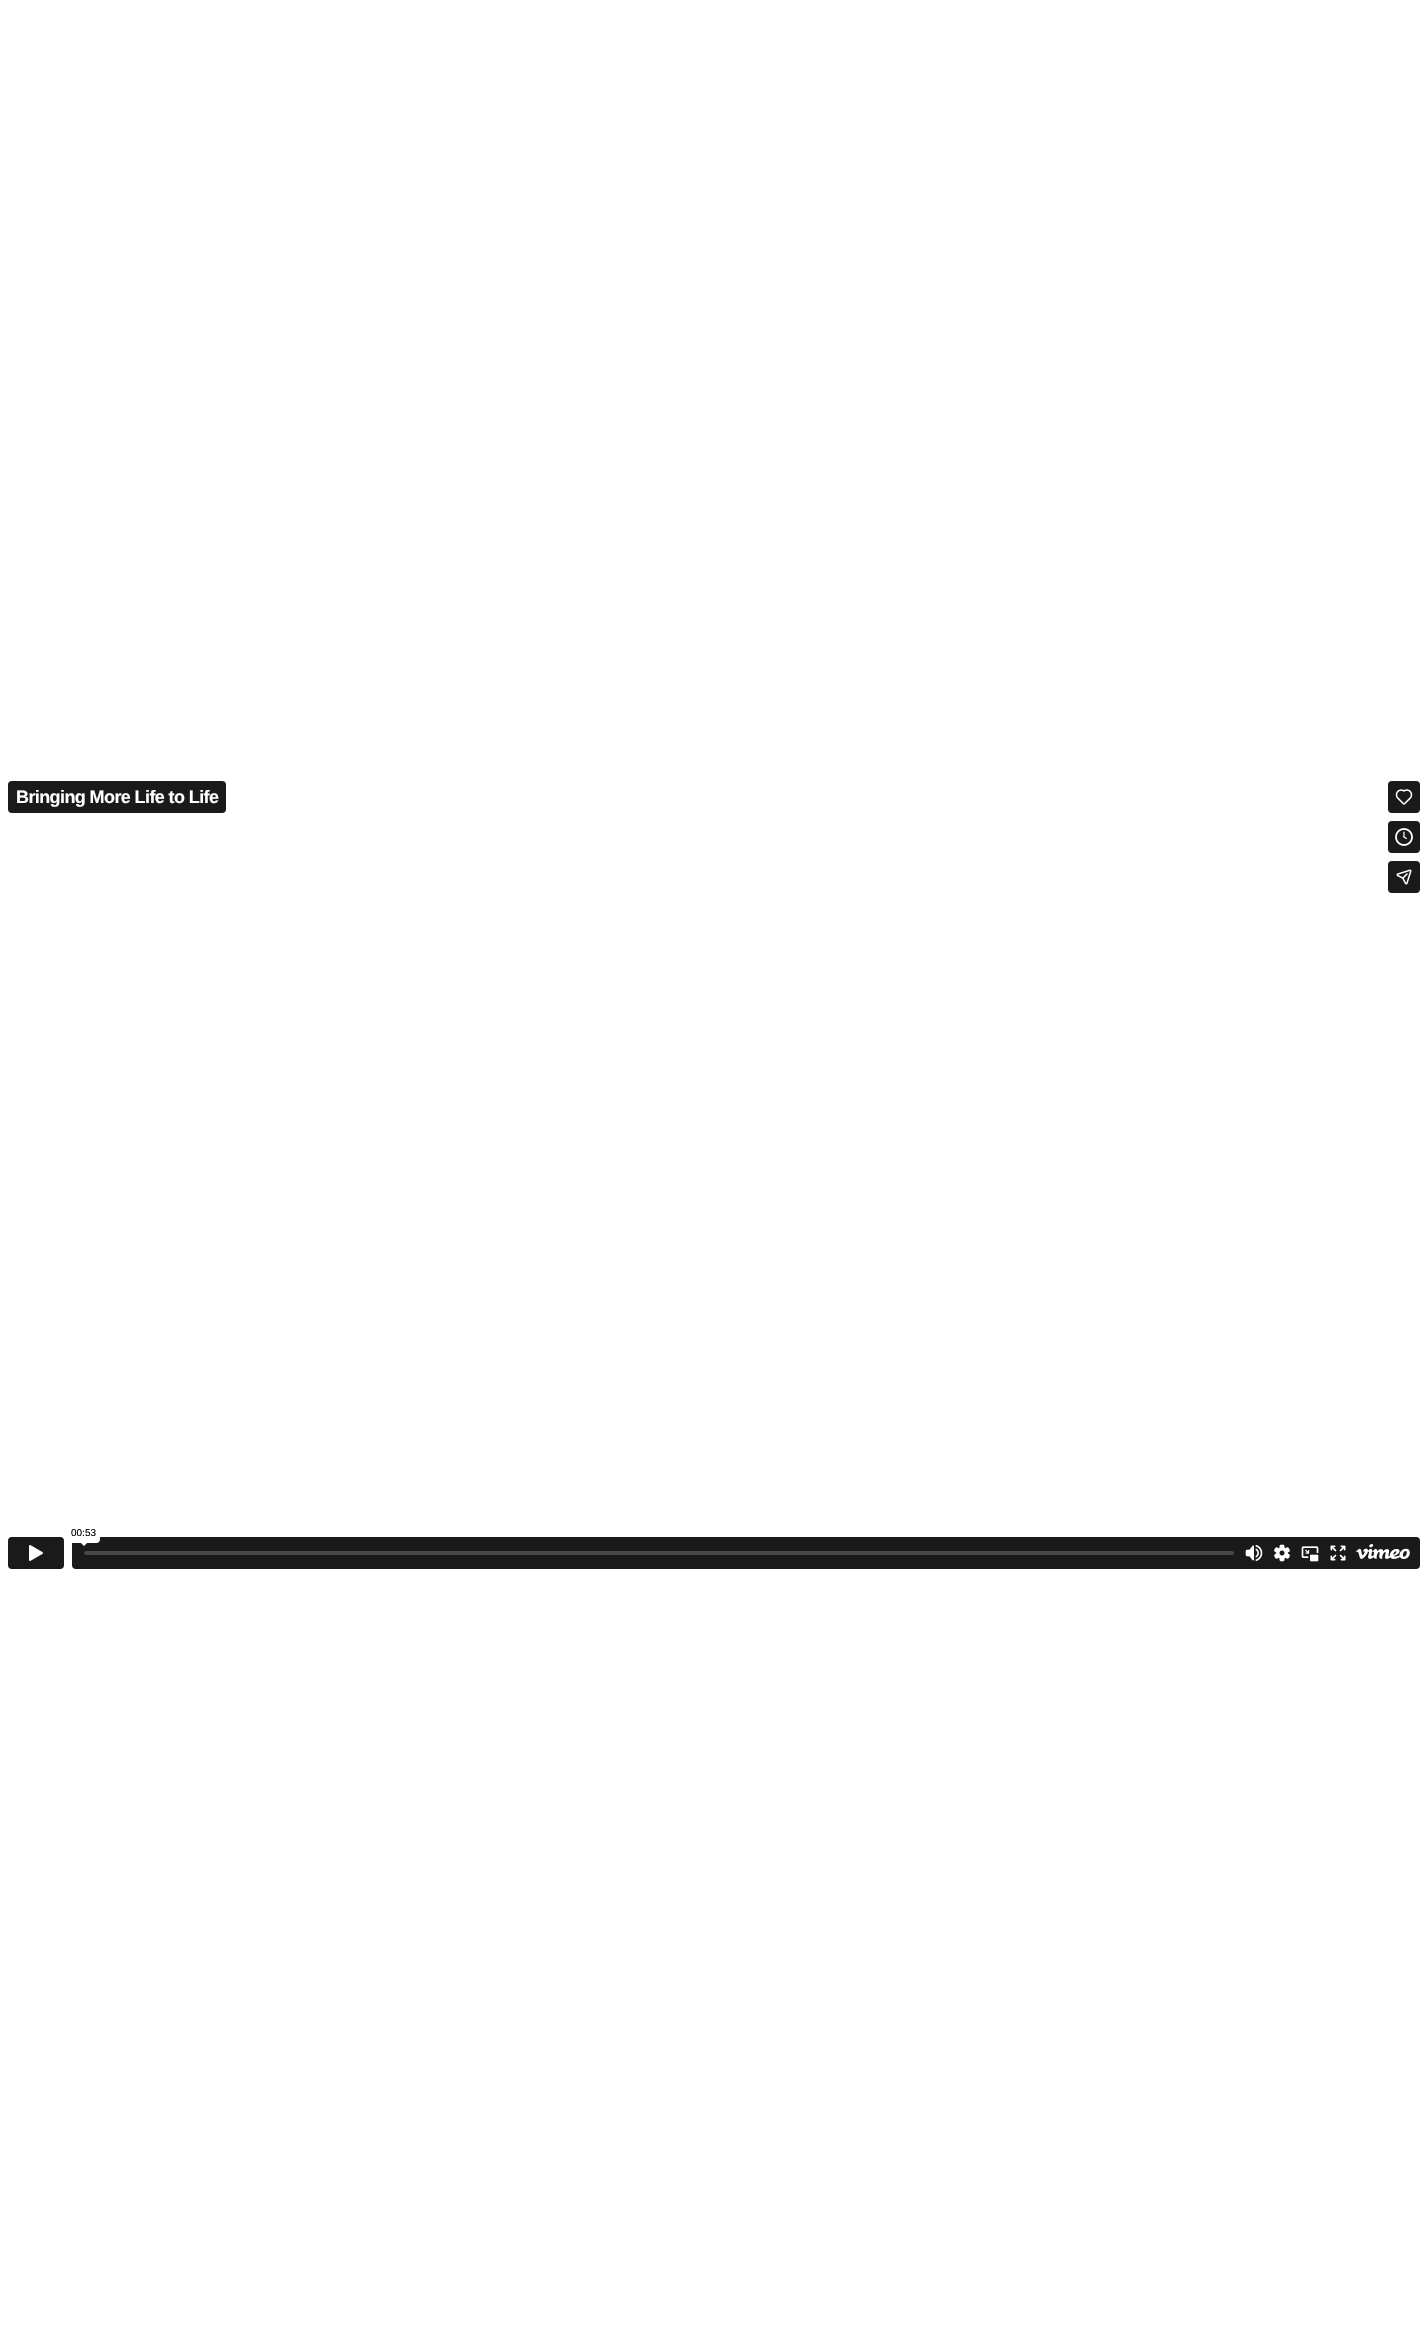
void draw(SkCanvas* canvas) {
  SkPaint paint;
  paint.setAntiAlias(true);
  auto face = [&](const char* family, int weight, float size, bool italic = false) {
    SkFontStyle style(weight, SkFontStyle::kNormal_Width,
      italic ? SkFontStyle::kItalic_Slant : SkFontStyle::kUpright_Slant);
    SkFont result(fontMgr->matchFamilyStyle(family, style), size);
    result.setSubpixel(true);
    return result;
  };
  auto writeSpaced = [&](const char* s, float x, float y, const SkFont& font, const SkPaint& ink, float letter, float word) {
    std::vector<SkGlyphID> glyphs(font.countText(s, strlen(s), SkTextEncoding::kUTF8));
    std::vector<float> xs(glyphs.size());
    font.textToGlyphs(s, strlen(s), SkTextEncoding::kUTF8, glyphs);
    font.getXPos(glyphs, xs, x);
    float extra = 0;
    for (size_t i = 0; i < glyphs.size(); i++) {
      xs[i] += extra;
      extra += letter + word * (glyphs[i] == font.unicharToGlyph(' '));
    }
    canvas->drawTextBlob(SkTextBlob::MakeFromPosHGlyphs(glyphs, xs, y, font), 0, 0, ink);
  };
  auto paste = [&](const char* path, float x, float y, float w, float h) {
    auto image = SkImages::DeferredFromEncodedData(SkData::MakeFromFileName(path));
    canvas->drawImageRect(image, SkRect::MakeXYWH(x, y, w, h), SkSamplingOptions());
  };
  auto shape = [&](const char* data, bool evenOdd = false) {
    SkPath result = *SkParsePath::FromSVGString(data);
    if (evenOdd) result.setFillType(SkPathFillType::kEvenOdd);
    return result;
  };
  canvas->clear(0xffffffff);
  paint.setColor(0xff1a1a1a);
  canvas->drawRoundRect(SkRect::MakeXYWH(8, 781, 218, 32), 4, 4, paint);
  canvas->drawRoundRect(SkRect::MakeXYWH(1388, 781, 32, 32), 4, 4, paint);
  paste("img/1.png", 1395, 789, 18, 16);
  canvas->drawRoundRect(SkRect::MakeXYWH(1388, 821, 32, 32), 4, 4, paint);
  paste("img/2.png", 1395, 828, 18, 18);
  canvas->drawRoundRect(SkRect::MakeXYWH(1388, 861, 32, 32), 4, 4, paint);
  paste("img/3.png", 1396, 869, 16, 16);
  canvas->drawRoundRect(SkRect::MakeXYWH(72, 1537, 1348, 32), 4, 4, paint);
  paint.setColor(0xffffffff);
  canvas->drawRoundRect(SkRect::MakeXYWH(67, 1523, 33, 20), 4, 4, paint);
  canvas->drawPath(shape("M80 1542H88L84 1546Z"), paint);
  paint.setColor(0xff484848);
  canvas->drawRoundRect(SkRect::MakeXYWH(84, 1551, 1150, 4), 2, 2, paint);
  paste("img/4.png", 1245, 1544, 18, 18);
  paste("img/5.png", 1274, 1544, 16, 18);
  paste("img/6.png", 1301, 1546, 18, 16);
  paste("img/7.png", 1330, 1545, 16, 16);
  paste("img/8.png", 1356, 1544, 54, 15);
  paint.setColor(0xff1a1a1a);
  canvas->drawRoundRect(SkRect::MakeXYWH(8, 1537, 56, 32), 4, 4, paint);
  paste("img/9.png", 29, 1545, 14, 16);
  auto f0 = face("Liberation Sans", 700, 18);
  paint.setColor(0xffffffff);
  writeSpaced("Bringing More Life to Life", 16, 803, f0, paint, -0.6f, 0);
  auto f1 = face("Liberation Sans", 400, 10);
  paint.setColor(0xff000000);
  canvas->drawString("00:53", 71, 1536, f1, paint);
}
